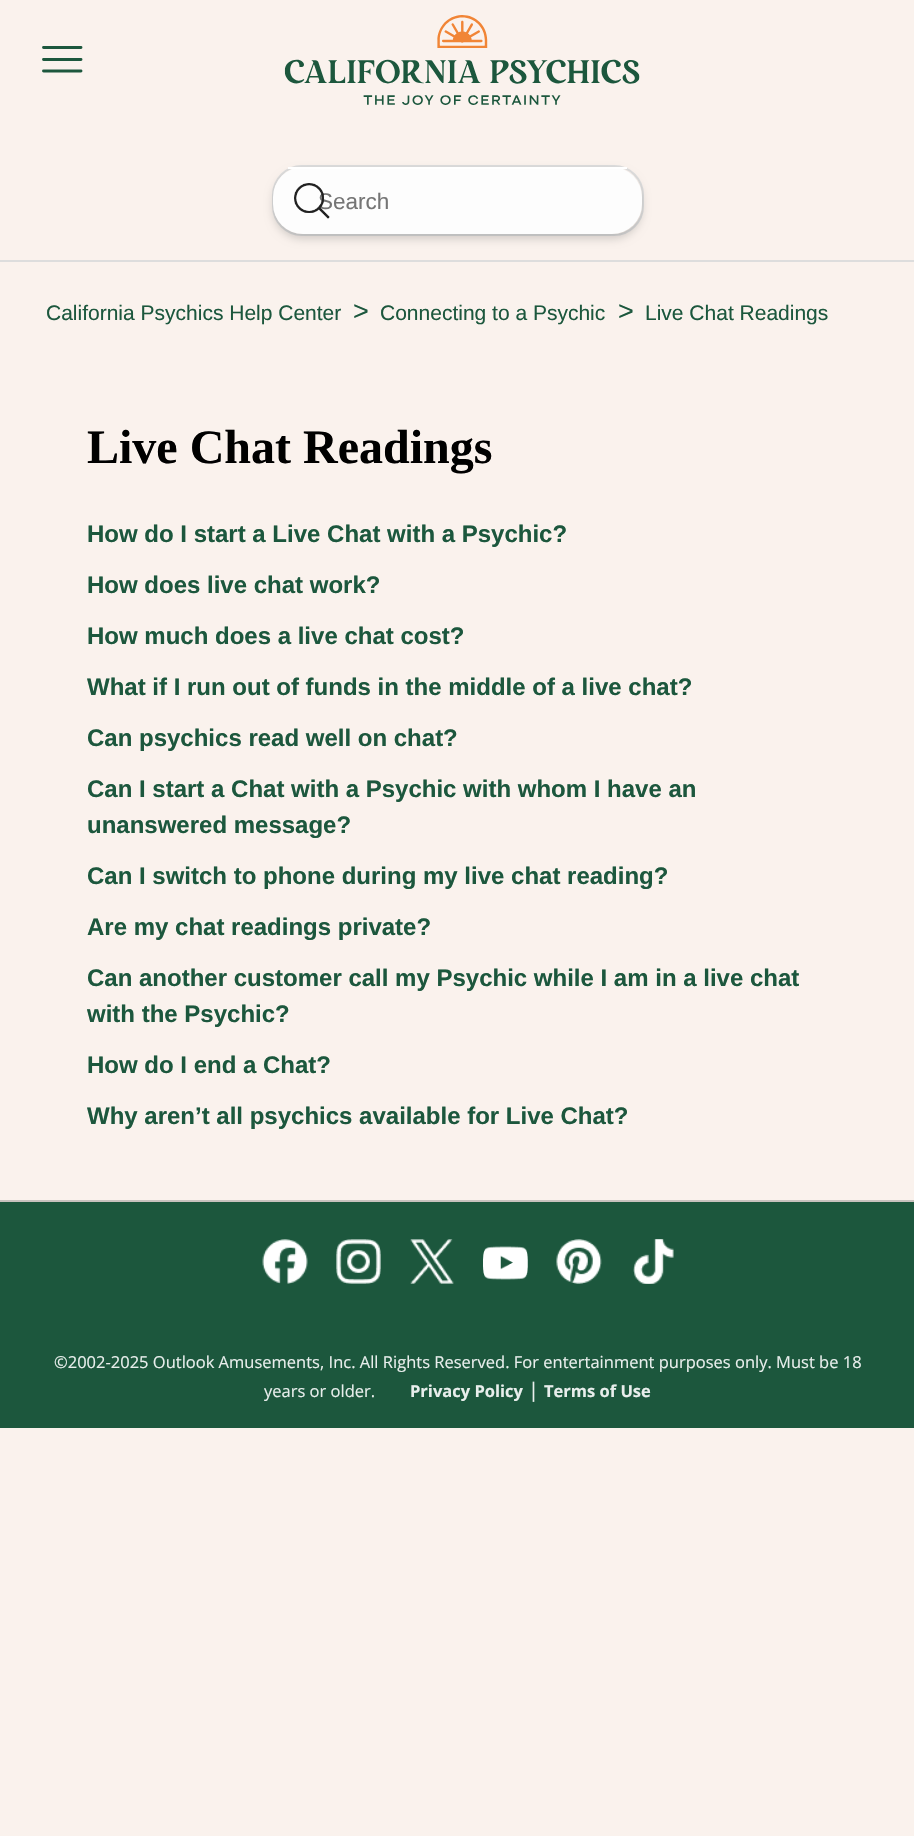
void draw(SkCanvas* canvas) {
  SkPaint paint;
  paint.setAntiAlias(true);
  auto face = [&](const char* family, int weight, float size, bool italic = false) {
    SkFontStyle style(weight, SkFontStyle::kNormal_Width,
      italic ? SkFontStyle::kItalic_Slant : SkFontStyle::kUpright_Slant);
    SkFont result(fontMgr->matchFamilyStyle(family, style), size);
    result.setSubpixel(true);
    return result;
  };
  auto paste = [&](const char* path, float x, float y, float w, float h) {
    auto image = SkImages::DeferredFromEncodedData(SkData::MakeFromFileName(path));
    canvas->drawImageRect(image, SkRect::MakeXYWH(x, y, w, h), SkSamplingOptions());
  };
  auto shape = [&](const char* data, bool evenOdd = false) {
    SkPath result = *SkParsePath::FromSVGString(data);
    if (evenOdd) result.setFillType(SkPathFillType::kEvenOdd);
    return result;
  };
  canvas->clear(0xfffaf2ed);
  paint.setStroke(true);
  paint.setStrokeWidth(2.9f);
  paint.setStrokeCap(SkPaint::kRound_Cap);
  paint.setColor(0xff1c573d);
  canvas->drawPath(shape("M43.5 47.5H81M43.5 59.5H81M43.5 71H81"), paint);
  paste("img/1.png", 284, 15, 356, 90);
  paint.setStrokeWidth(2);
  paint.setStrokeCap(SkPaint::kButt_Cap);
  paint.setColor(0xffdddddd);
  canvas->drawRoundRect(SkRect::MakeXYWH(273, 166, 370, 69), 29, 29, paint);
  paint.setStroke(false);
  paint.setColor(0x29000000);
  paint.setMaskFilter(SkMaskFilter::MakeBlur(kNormal_SkBlurStyle, 4.5f));
  canvas->drawRoundRect(SkRect::MakeXYWH(273, 171, 369, 68), 30, 30, paint);
  paint.setMaskFilter(nullptr);
  paint.setColor(0xfffdfdfd);
  canvas->drawRoundRect(SkRect::MakeXYWH(273, 167, 369, 67), 30, 30, paint);
  {
    const struct { float x, y, w, h; SkColor color; } items[] = {
      {288, 167, 339, 2, 0xffffffff},
      {0, 260, 914, 2, 0xffdddddd},
      {0, 1200, 914, 2, 0xffc8c2be},
      {0, 1202, 914, 226, 0xff1c573d},
    };
    for (auto [x, y, w, h, color] : items) {
      paint.setColor(color);
      canvas->drawRect(SkRect::MakeXYWH(x, y, w, h), paint);
    }
  }
  paste("img/3.png", 262, 1239, 46, 45);
  paste("img/4.png", 336, 1239, 45, 45);
  paste("img/5.png", 410, 1239, 44, 45);
  paste("img/6.png", 483, 1246, 45, 34);
  paste("img/7.png", 556, 1239, 46, 45);
  paste("img/8.png", 633, 1239, 41, 45);
  auto f0 = face("Liberation Sans", 400, 22.5f);
  paint.setColor(0xff757575);
  canvas->drawString("Search", 318, 209, f0, paint);
  paste("img/2.png", 294, 183, 36, 36);
  auto f1 = face("Liberation Sans", 400, 21);
  paint.setColor(0xff1c573d);
  canvas->drawString("California Psychics Help Center", 46, 320, f1, paint);
  auto f2 = face("Liberation Sans", 400, 27);
  canvas->drawString(">", 353, 320, f2, paint);
  canvas->drawString("Connecting to a Psychic", 380, 320, f1, paint);
  canvas->drawString(">", 618, 320, f2, paint);
  canvas->drawString("Live Chat Readings", 645, 320, f1, paint);
  auto f3 = face("Liberation Serif", 700, 48);
  paint.setColor(0xff000000);
  canvas->drawString("Live Chat Readings", 87, 463, f3, paint);
  auto f4 = face("Liberation Sans", 700, 24);
  paint.setColor(0xff1c573d);
  {
    const struct { const char* s; float x, y; } items[] = {
      {"How do I start a Live Chat with a Psychic?", 87, 542},
      {"How does live chat work?", 87, 593},
      {"How much does a live chat cost?", 87, 644},
      {"What if I run out of funds in the middle of a live chat?", 87, 695},
      {"Can psychics read well on chat?", 87, 746},
      {"Can I start a Chat with a Psychic with whom I have an", 87, 797},
      {"unanswered message?", 87, 833},
      {"Can I switch to phone during my live chat reading?", 87, 884},
      {"Are my chat readings private?", 87, 935},
      {"Can another customer call my Psychic while I am in a live chat", 87, 986},
      {"with the Psychic?", 87, 1022},
      {"How do I end a Chat?", 87, 1073},
      {"Why aren’t all psychics available for Live Chat?", 87, 1124},
    };
    for (auto [s, x, y] : items) {
      canvas->drawString(s, x, y, f4, paint);
    }
  }
  auto f5 = face("Open Sans", 400, 16.5f);
  paint.setColor(0xffe8eeec);
  canvas->drawString("©2002-2025 Outlook Amusements, Inc. All Rights Reserved. For entertainment purposes only. Must be 18", 54, 1368, f5, paint);
  canvas->drawString("years or older.", 264, 1397, f5, paint);
  auto f6 = face("Open Sans", 700, 16.5f);
  canvas->drawString("Privacy Policy", 410, 1397, f6, paint);
  auto f7 = face("Open Sans", 400, 20);
  canvas->drawString("|", 528, 1397, f7, paint);
  canvas->drawString("Terms of Use", 544, 1397, f6, paint);
}
